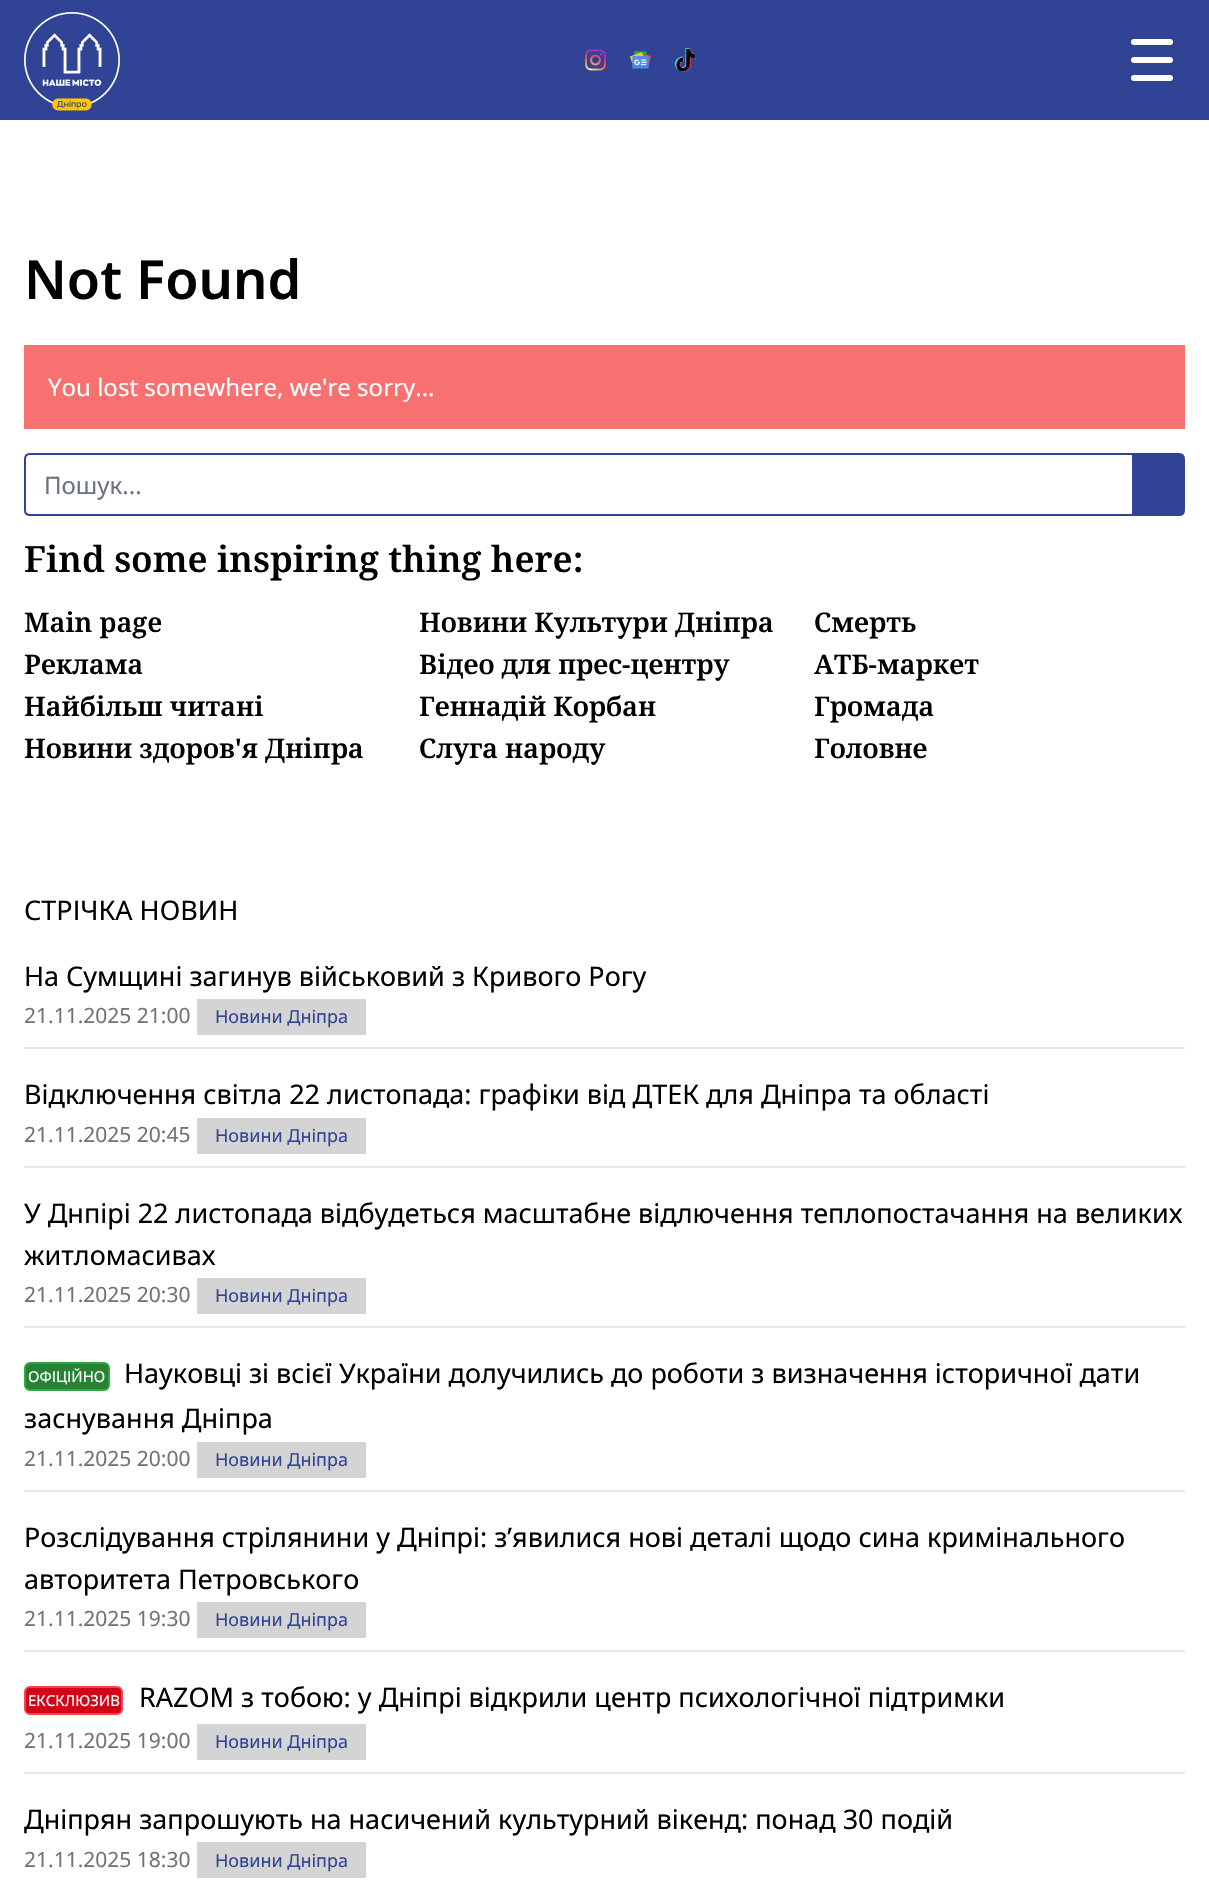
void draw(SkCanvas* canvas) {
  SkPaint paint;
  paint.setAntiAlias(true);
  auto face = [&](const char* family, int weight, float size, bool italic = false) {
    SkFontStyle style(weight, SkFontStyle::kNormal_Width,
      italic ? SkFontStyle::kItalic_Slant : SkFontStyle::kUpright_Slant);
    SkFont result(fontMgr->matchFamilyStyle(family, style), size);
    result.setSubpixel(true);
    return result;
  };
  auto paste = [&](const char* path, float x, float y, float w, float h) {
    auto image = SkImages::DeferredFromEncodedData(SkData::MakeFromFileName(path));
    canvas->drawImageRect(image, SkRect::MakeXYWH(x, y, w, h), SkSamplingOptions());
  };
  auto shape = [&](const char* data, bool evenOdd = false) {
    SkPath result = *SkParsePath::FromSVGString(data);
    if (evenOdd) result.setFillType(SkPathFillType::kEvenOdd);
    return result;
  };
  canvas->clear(0xffffffff);
  paint.setColor(0xff304394);
  canvas->drawRect(SkRect::MakeXYWH(0, 0, 1209, 120), paint);
  paste("img/1.png", 24, 12, 96, 99);
  paste("img/2.png", 585, 49, 21, 22);
  paste("img/3.png", 630, 51, 21, 18);
  paste("img/4.png", 675, 48, 21, 24);
  paint.setColor(0xffffffff);
  canvas->drawRoundRect(SkRect::MakeXYWH(1131, 39, 42, 6), 3, 3, paint);
  canvas->drawRoundRect(SkRect::MakeXYWH(1131, 57, 42, 6), 3, 3, paint);
  canvas->drawRoundRect(SkRect::MakeXYWH(1131, 75, 42, 6), 3, 3, paint);
  paint.setColor(0xfff87171);
  canvas->drawRect(SkRect::MakeXYWH(24, 345, 1161, 84), paint);
  paint.setStroke(true);
  paint.setStrokeWidth(2);
  paint.setColor(0xff304394);
  canvas->drawPath(shape("M30 454H1133V515H30C27 515 25 513 25 510V459C25 456 27 454 30 454Z"), paint);
  paint.setStroke(false);
  canvas->drawPath(shape("M1135 454H1179C1182 454 1184 456 1184 459V510C1184 513 1182 515 1179 515H1135Z"), paint);
  paint.setStroke(true);
  canvas->drawPath(shape("M1135 454H1179C1182 454 1184 456 1184 459V510C1184 513 1182 515 1179 515H1135Z"), paint);
  paint.setStroke(false);
  {
    const struct { float x, y, w, h; SkColor color; } items[] = {
      {24, 1047, 1161, 2, 0xffe5e7eb},
      {197, 999, 169, 36, 0xffd4d4d4},
      {24, 1166, 1161, 2, 0xffe5e7eb},
      {197, 1118, 169, 36, 0xffd4d4d4},
      {24, 1326, 1161, 2, 0xffe5e7eb},
      {197, 1278, 169, 36, 0xffd4d4d4},
      {24, 1490, 1161, 2, 0xffe5e7eb},
    };
    for (auto [x, y, w, h, color] : items) {
      paint.setColor(color);
      canvas->drawRect(SkRect::MakeXYWH(x, y, w, h), paint);
    }
  }
  paint.setColor(0xff278233);
  canvas->drawRoundRect(SkRect::MakeXYWH(25, 1363, 84, 27), 5, 5, paint);
  paint.setStroke(true);
  paint.setColor(0xff32a842);
  canvas->drawRoundRect(SkRect::MakeXYWH(25, 1363, 84, 27), 5, 5, paint);
  paint.setStroke(false);
  {
    const struct { float x, y, w, h; SkColor color; } items[] = {
      {197, 1442, 169, 36, 0xffd4d4d4},
      {24, 1650, 1161, 2, 0xffe5e7eb},
      {197, 1602, 169, 36, 0xffd4d4d4},
      {24, 1772, 1161, 2, 0xffe5e7eb},
    };
    for (auto [x, y, w, h, color] : items) {
      paint.setColor(color);
      canvas->drawRect(SkRect::MakeXYWH(x, y, w, h), paint);
    }
  }
  paint.setColor(0xffd10516);
  canvas->drawRoundRect(SkRect::MakeXYWH(25, 1687, 97, 27), 5, 5, paint);
  paint.setStroke(true);
  paint.setColor(0xfffa4454);
  canvas->drawRoundRect(SkRect::MakeXYWH(25, 1687, 97, 27), 5, 5, paint);
  paint.setStroke(false);
  paint.setColor(0xffd4d4d4);
  canvas->drawRect(SkRect::MakeXYWH(197, 1724, 169, 36), paint);
  canvas->drawRect(SkRect::MakeXYWH(197, 1842, 169, 36), paint);
  auto f0 = face("Noto Sans", 600, 54);
  paint.setColor(0xff000000);
  canvas->drawString("Not Found", 24, 299, f0, paint);
  auto f1 = face("Noto Sans", 400, 24);
  paint.setColor(0xffffffff);
  canvas->drawString("You lost somewhere, we're sorry...", 48, 396, f1, paint);
  paint.setColor(0xff6b7280);
  canvas->drawString("Пошук...", 44, 494, f1, paint);
  auto f2 = face("Noto Serif", 600, 36);
  paint.setColor(0xff000000);
  canvas->drawString("Find some inspiring thing here:", 24, 572, f2, paint);
  auto f3 = face("Noto Serif", 600, 27);
  {
    const struct { const char* s; float x, y; } items[] = {
      {"Main page", 24, 632},
      {"Новини Культури Дніпра", 419, 632},
      {"Смерть", 814, 632},
      {"Реклама", 24, 674},
      {"Відео для прес-центру", 419, 674},
      {"АТБ-маркет", 814, 674},
      {"Найбільш читані", 24, 716},
      {"Геннадій Корбан", 419, 716},
      {"Громада", 814, 716},
      {"Новини здоров'я Дніпра", 24, 758},
      {"Слуга народу", 419, 758},
      {"Головне", 814, 758},
    };
    for (auto [s, x, y] : items) {
      canvas->drawString(s, x, y, f3, paint);
    }
  }
  auto f4 = face("Noto Sans", 400, 27);
  canvas->drawString("СТРІЧКА НОВИН", 24, 920, f4, paint);
  canvas->drawString("На Сумщині загинув військовий з Кривого Рогу", 24, 986, f4, paint);
  auto f5 = face("Noto Sans", 400, 21);
  paint.setColor(0xff737373);
  canvas->drawString("21.11.2025 21:00", 24, 1023, f5, paint);
  auto f6 = face("Noto Sans", 400, 18);
  paint.setColor(0xff304394);
  canvas->drawString("Новини Дніпра", 215, 1023, f6, paint);
  paint.setColor(0xff000000);
  canvas->drawString("Відключення світла 22 листопада: графіки від ДТЕК для Дніпра та області", 24, 1104, f4, paint);
  paint.setColor(0xff737373);
  canvas->drawString("21.11.2025 20:45", 24, 1142, f5, paint);
  paint.setColor(0xff304394);
  canvas->drawString("Новини Дніпра", 215, 1142, f6, paint);
  paint.setColor(0xff000000);
  canvas->drawString("У Днпірі 22 листопада відбудеться масштабне відлючення теплопостачання на великих", 24, 1223, f4, paint);
  canvas->drawString("житломасивах", 24, 1265, f4, paint);
  paint.setColor(0xff737373);
  canvas->drawString("21.11.2025 20:30", 24, 1302, f5, paint);
  paint.setColor(0xff304394);
  canvas->drawString("Новини Дніпра", 215, 1302, f6, paint);
  auto f7 = face("Noto Sans", 400, 15);
  paint.setColor(0xffffffff);
  canvas->drawString("ОФІЦІЙНО", 28, 1382, f7, paint);
  paint.setColor(0xff000000);
  canvas->drawString("Науковці зі всієї України долучились до роботи з визначення історичної дати", 124, 1383, f4, paint);
  canvas->drawString("заснування Дніпра", 24, 1428, f4, paint);
  paint.setColor(0xff737373);
  canvas->drawString("21.11.2025 20:00", 24, 1466, f5, paint);
  paint.setColor(0xff304394);
  canvas->drawString("Новини Дніпра", 215, 1466, f6, paint);
  paint.setColor(0xff000000);
  canvas->drawString("Розслідування стрілянини у Дніпрі: з’явилися нові деталі щодо сина кримінального", 24, 1547, f4, paint);
  canvas->drawString("авторитета Петровського", 24, 1589, f4, paint);
  paint.setColor(0xff737373);
  canvas->drawString("21.11.2025 19:30", 24, 1626, f5, paint);
  paint.setColor(0xff304394);
  canvas->drawString("Новини Дніпра", 215, 1626, f6, paint);
  paint.setColor(0xffffffff);
  canvas->drawString("ЕКСКЛЮЗИВ", 28, 1706, f7, paint);
  paint.setColor(0xff000000);
  canvas->drawString("RAZOM з тобою: у Дніпрі відкрили центр психологічної підтримки", 139, 1707, f4, paint);
  paint.setColor(0xff737373);
  canvas->drawString("21.11.2025 19:00", 24, 1748, f5, paint);
  paint.setColor(0xff304394);
  canvas->drawString("Новини Дніпра", 215, 1748, f6, paint);
  paint.setColor(0xff000000);
  canvas->drawString("Дніпрян запрошують на насичений культурний вікенд: понад 30 подій", 24, 1829, f4, paint);
  paint.setColor(0xff737373);
  canvas->drawString("21.11.2025 18:30", 24, 1867, f5, paint);
  paint.setColor(0xff304394);
  canvas->drawString("Новини Дніпра", 215, 1867, f6, paint);
}
